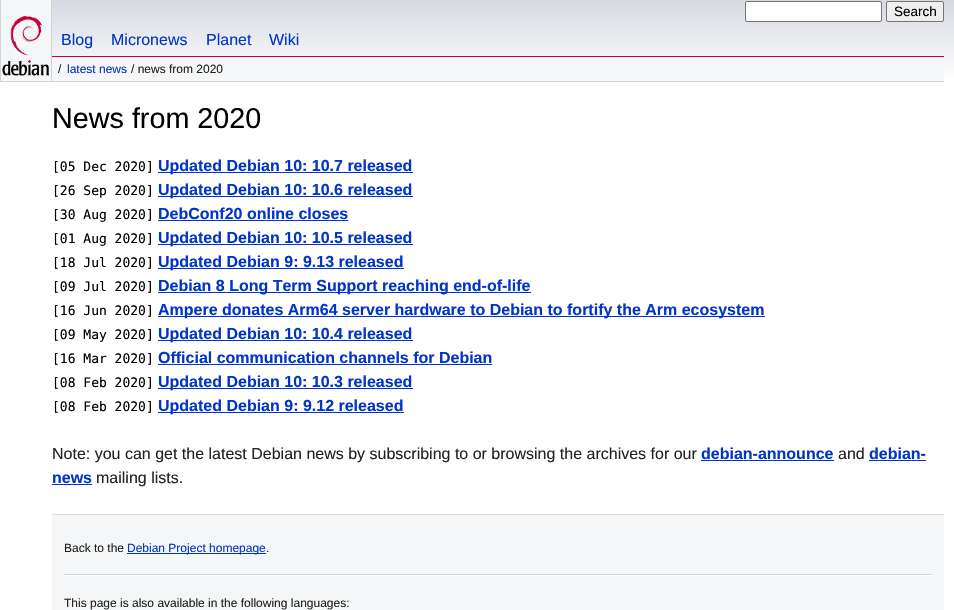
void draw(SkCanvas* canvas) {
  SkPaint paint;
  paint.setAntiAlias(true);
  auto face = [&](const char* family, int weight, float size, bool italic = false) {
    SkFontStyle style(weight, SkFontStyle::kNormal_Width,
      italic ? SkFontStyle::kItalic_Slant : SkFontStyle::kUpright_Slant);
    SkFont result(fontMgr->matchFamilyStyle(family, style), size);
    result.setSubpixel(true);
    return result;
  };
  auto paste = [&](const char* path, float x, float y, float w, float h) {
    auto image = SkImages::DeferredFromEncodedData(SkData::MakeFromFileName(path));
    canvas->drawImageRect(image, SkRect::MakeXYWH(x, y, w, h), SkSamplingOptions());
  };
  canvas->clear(0xffffffff);
  {
    const SkColor colors[] = {0xffd7d9e2, 0xffffffff};
    const float stops[] = {0, 1};
    const SkPoint ends[] = {{477, 0}, {477, 82}};
    paint.setShader(SkGradientShader::MakeLinear(ends, colors, stops, 2, SkTileMode::kClamp));
    paint.setAlpha(255);
  }
  canvas->drawRect(SkRect::MakeXYWH(52, 0, 902, 77), paint);
  paint.setShader(nullptr);
  {
    const struct { float x, y, w, h; SkColor color; } items[] = {
      {1, 0, 50, 81, 0xfff5f6f7},
      {51, 0, 1, 82, 0xffd2d3d7},
      {0, 81, 52, 1, 0xffd2d3d7},
      {0, 0, 1, 82, 0xffd2d3d7},
    };
    for (auto [x, y, w, h, color] : items) {
      paint.setColor(color);
      canvas->drawRect(SkRect::MakeXYWH(x, y, w, h), paint);
    }
  }
  paste("img/1.png", 2, 16, 47, 60);
  paint.setColor(0xffffffff);
  canvas->drawRoundRect(SkRect::MakeXYWH(745.5f, 1.5f, 136, 20), 1.5f, 1.5f, paint);
  paint.setStroke(true);
  paint.setStrokeWidth(1);
  paint.setColor(0xff767676);
  canvas->drawRoundRect(SkRect::MakeXYWH(745.5f, 1.5f, 136, 20), 1.5f, 1.5f, paint);
  paint.setStroke(false);
  paint.setColor(0xffefefef);
  canvas->drawRoundRect(SkRect::MakeXYWH(886.5f, 1.5f, 57, 20), 1.5f, 1.5f, paint);
  paint.setStroke(true);
  paint.setColor(0xff767676);
  canvas->drawRoundRect(SkRect::MakeXYWH(886.5f, 1.5f, 57, 20), 1.5f, 1.5f, paint);
  paint.setStroke(false);
  {
    const struct { float x, y, w, h; SkColor color; } items[] = {
      {52, 56, 892, 1, 0xffc70036},
      {52, 66, 892, 15, 0xfff5f6f7},
      {52, 81, 892, 1, 0xffd2d3d7},
      {158, 172, 255, 1, 0xff0035c7},
      {158, 196, 255, 1, 0xff0035c7},
      {158, 220, 190, 1, 0xff0035c7},
      {158, 244, 255, 1, 0xff0035c7},
      {158, 268, 246, 1, 0xff0035c7},
      {158, 292, 373, 1, 0xff0035c7},
      {158, 316, 607, 1, 0xff0035c7},
      {158, 340, 255, 1, 0xff0035c7},
      {158, 364, 334, 1, 0xff0035c7},
      {158, 388, 255, 1, 0xff0035c7},
      {158, 412, 246, 1, 0xff0035c7},
      {701, 460, 133, 1, 0xff0035c7},
      {869, 460, 57, 1, 0xff0035c7},
      {52, 484, 40, 1, 0xff0035c7},
      {52, 515, 892, 95, 0xfff5f6f7},
      {52, 514, 892, 1, 0xffdfdfe0},
      {127, 553, 139, 1, 0xff0035c7},
      {64, 574, 868, 1, 0xffd2d3d7},
      {64, 575, 868, 1, 0xffffffff},
    };
    for (auto [x, y, w, h, color] : items) {
      paint.setColor(color);
      canvas->drawRect(SkRect::MakeXYWH(x, y, w, h), paint);
    }
  }
  auto f0 = face("Liberation Sans", 400, 13.5f);
  paint.setColor(0xff000000);
  canvas->drawString("Search", 894, 16, f0, paint);
  auto f1 = face("Liberation Sans", 400, 16);
  paint.setColor(0xff0035c7);
  {
    const struct { const char* s; float x, y; } items[] = {
      {"Blog", 61, 45},
      {"Micronews", 111, 45},
      {"Planet", 206, 45},
      {"Wiki", 269, 45},
    };
    for (auto [s, x, y] : items) {
      canvas->drawString(s, x, y, f1, paint);
    }
  }
  auto f2 = face("Liberation Sans", 400, 12);
  paint.setColor(0xff222222);
  canvas->drawString("/", 58, 73, f2, paint);
  paint.setColor(0xff0035c7);
  canvas->drawString("latest news", 67, 73, f2, paint);
  paint.setColor(0xff222222);
  canvas->drawString("/ news from 2020", 131, 73, f2, paint);
  auto f3 = face("Liberation Sans", 400, 28.75f);
  paint.setColor(0xff000000);
  canvas->drawString("News from 2020", 52, 128, f3, paint);
  auto f4 = face("DejaVu Sans Mono", 400, 13);
  canvas->drawString("[05 Dec 2020]", 52, 171, f4, paint);
  auto f5 = face("Liberation Sans", 700, 16);
  paint.setColor(0xff0035c7);
  canvas->drawString("Updated Debian 10: 10.7 released", 158, 171, f5, paint);
  paint.setColor(0xff000000);
  canvas->drawString("[26 Sep 2020]", 52, 195, f4, paint);
  paint.setColor(0xff0035c7);
  canvas->drawString("Updated Debian 10: 10.6 released", 158, 195, f5, paint);
  paint.setColor(0xff000000);
  canvas->drawString("[30 Aug 2020]", 52, 219, f4, paint);
  paint.setColor(0xff0035c7);
  canvas->drawString("DebConf20 online closes", 158, 219, f5, paint);
  paint.setColor(0xff000000);
  canvas->drawString("[01 Aug 2020]", 52, 243, f4, paint);
  paint.setColor(0xff0035c7);
  canvas->drawString("Updated Debian 10: 10.5 released", 158, 243, f5, paint);
  paint.setColor(0xff000000);
  canvas->drawString("[18 Jul 2020]", 52, 267, f4, paint);
  paint.setColor(0xff0035c7);
  canvas->drawString("Updated Debian 9: 9.13 released", 158, 267, f5, paint);
  paint.setColor(0xff000000);
  canvas->drawString("[09 Jul 2020]", 52, 291, f4, paint);
  paint.setColor(0xff0035c7);
  canvas->drawString("Debian 8 Long Term Support reaching end-of-life", 158, 291, f5, paint);
  paint.setColor(0xff000000);
  canvas->drawString("[16 Jun 2020]", 52, 315, f4, paint);
  paint.setColor(0xff0035c7);
  canvas->drawString("Ampere donates Arm64 server hardware to Debian to fortify the Arm ecosystem", 158, 315, f5, paint);
  paint.setColor(0xff000000);
  canvas->drawString("[09 May 2020]", 52, 339, f4, paint);
  paint.setColor(0xff0035c7);
  canvas->drawString("Updated Debian 10: 10.4 released", 158, 339, f5, paint);
  paint.setColor(0xff000000);
  canvas->drawString("[16 Mar 2020]", 52, 363, f4, paint);
  paint.setColor(0xff0035c7);
  canvas->drawString("Official communication channels for Debian", 158, 363, f5, paint);
  paint.setColor(0xff000000);
  canvas->drawString("[08 Feb 2020]", 52, 387, f4, paint);
  paint.setColor(0xff0035c7);
  canvas->drawString("Updated Debian 10: 10.3 released", 158, 387, f5, paint);
  paint.setColor(0xff000000);
  canvas->drawString("[08 Feb 2020]", 52, 411, f4, paint);
  paint.setColor(0xff0035c7);
  canvas->drawString("Updated Debian 9: 9.12 released", 158, 411, f5, paint);
  paint.setColor(0xff222222);
  canvas->drawString("Note: you can get the latest Debian news by subscribing to or browsing the archives for our", 52, 459, f1, paint);
  paint.setColor(0xff0035c7);
  canvas->drawString("debian-announce", 701, 459, f5, paint);
  paint.setColor(0xff222222);
  canvas->drawString("and", 838, 459, f1, paint);
  paint.setColor(0xff0035c7);
  canvas->drawString("debian-", 869, 459, f5, paint);
  canvas->drawString("news", 52, 483, f5, paint);
  paint.setColor(0xff222222);
  canvas->drawString("mailing lists.", 96, 483, f1, paint);
  canvas->drawString("Back to the", 64, 552, f2, paint);
  paint.setColor(0xff0035c7);
  canvas->drawString("Debian Project homepage", 127, 552, f2, paint);
  paint.setColor(0xff222222);
  canvas->drawString(".", 266, 552, f2, paint);
  canvas->drawString("This page is also available in the following languages:", 64, 607, f2, paint);
}
